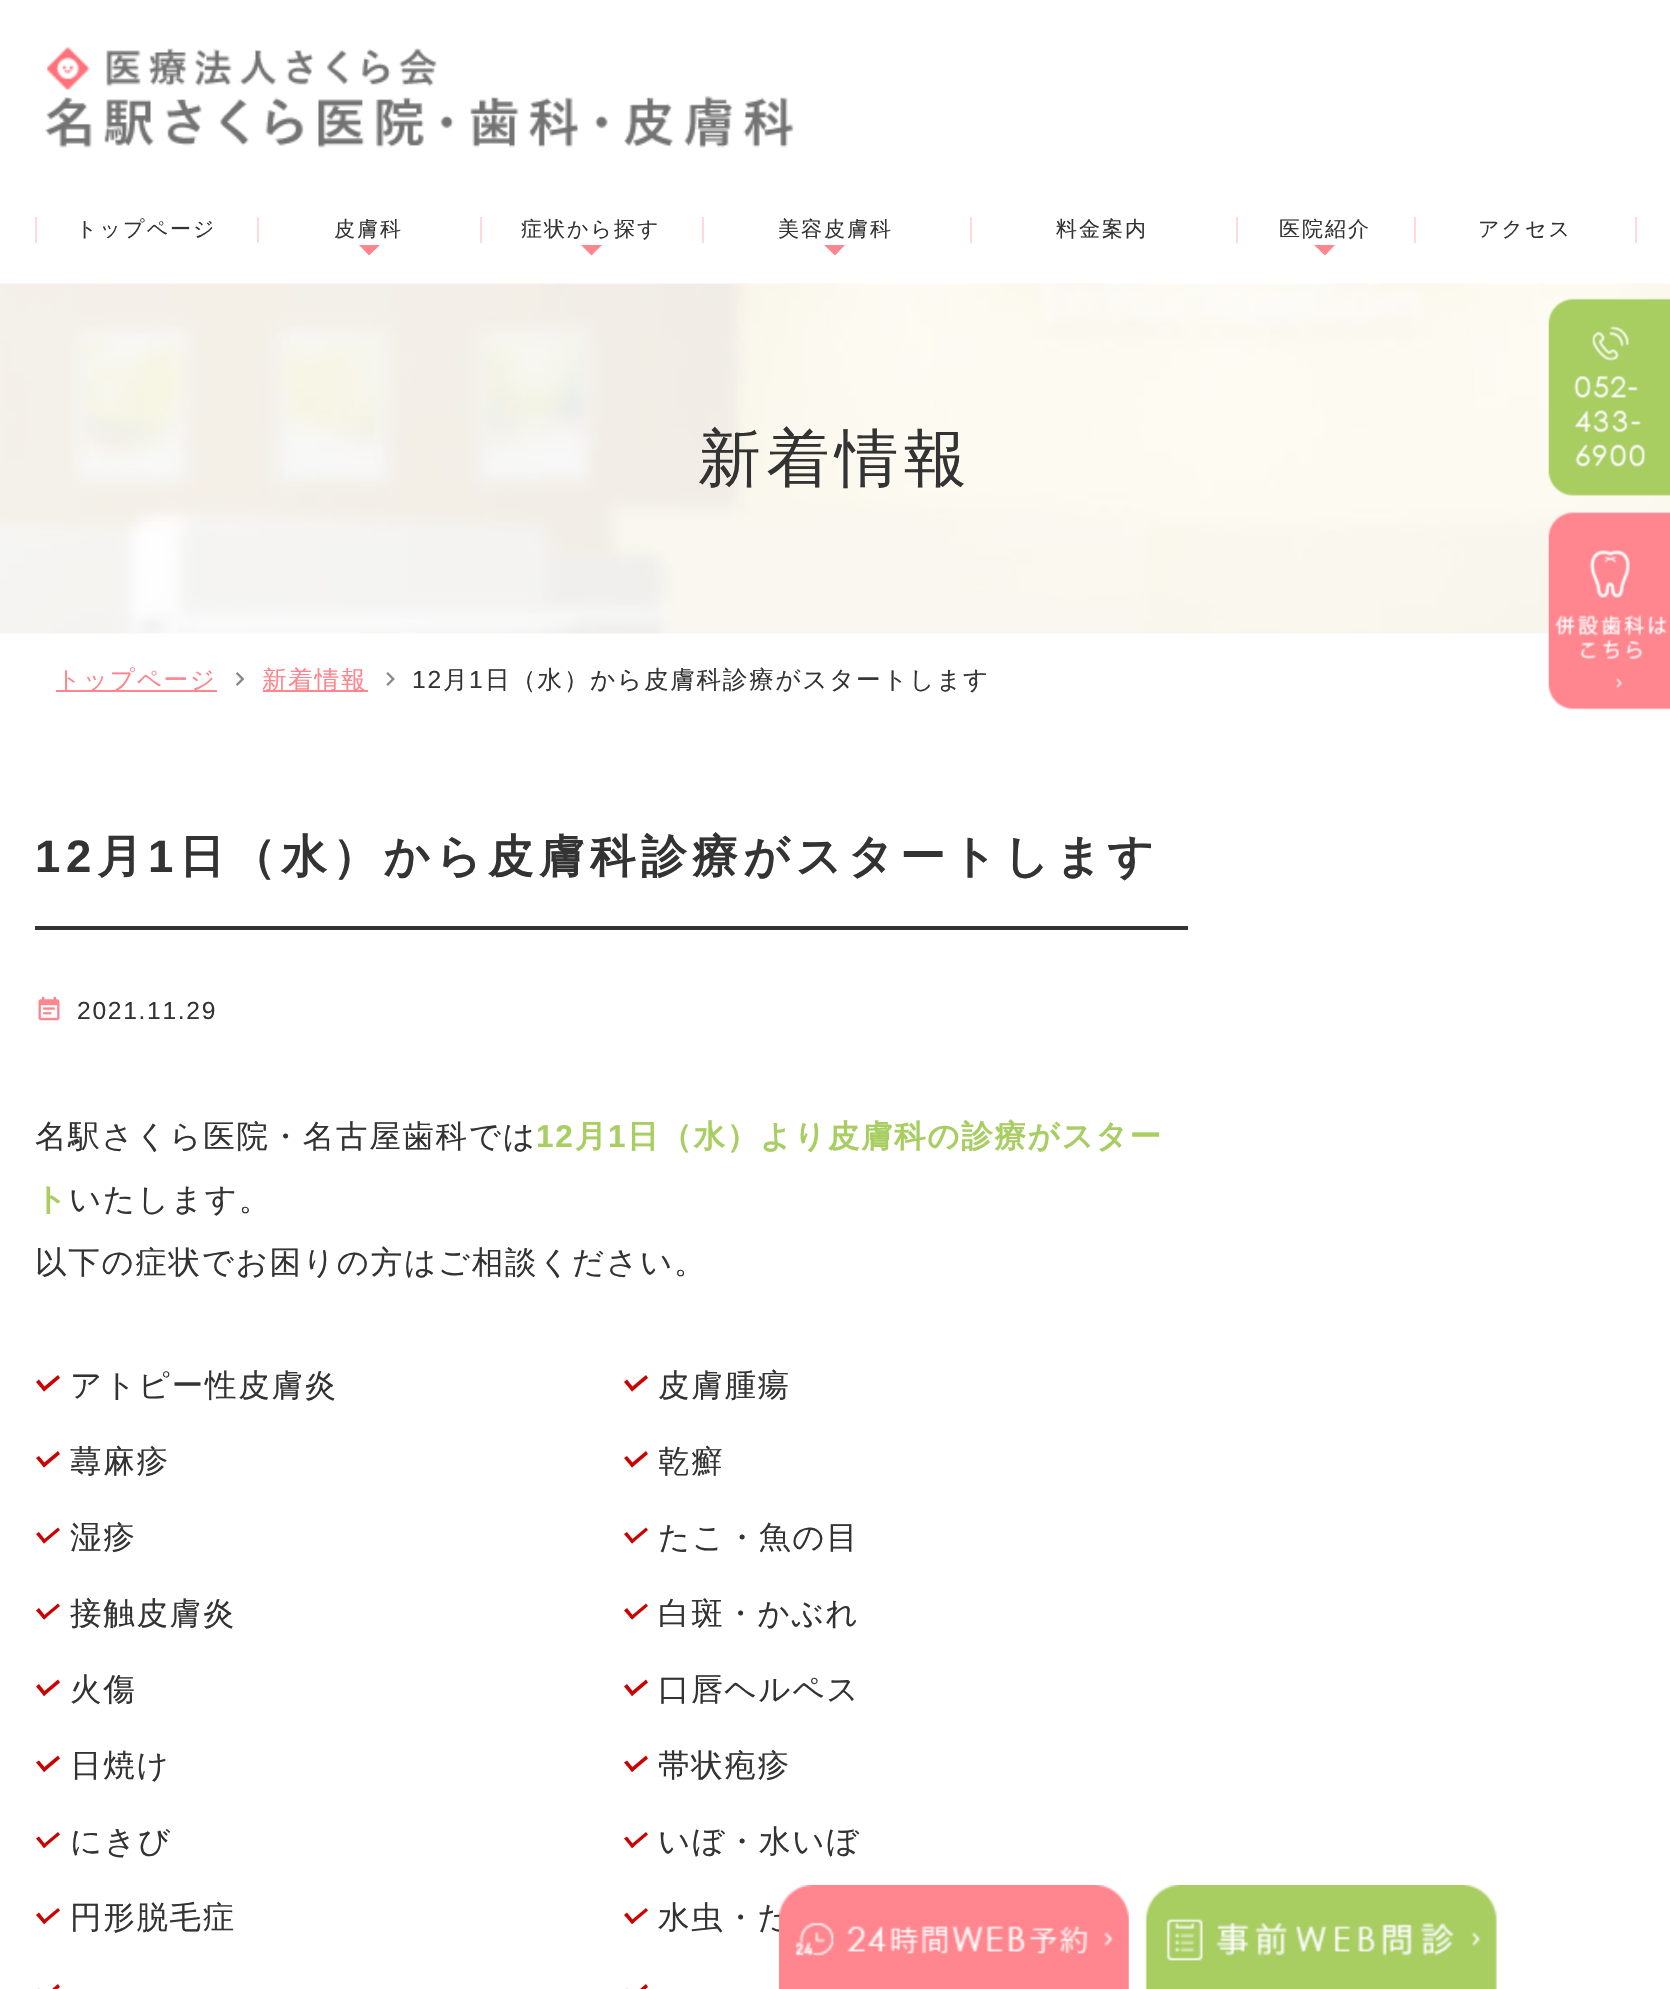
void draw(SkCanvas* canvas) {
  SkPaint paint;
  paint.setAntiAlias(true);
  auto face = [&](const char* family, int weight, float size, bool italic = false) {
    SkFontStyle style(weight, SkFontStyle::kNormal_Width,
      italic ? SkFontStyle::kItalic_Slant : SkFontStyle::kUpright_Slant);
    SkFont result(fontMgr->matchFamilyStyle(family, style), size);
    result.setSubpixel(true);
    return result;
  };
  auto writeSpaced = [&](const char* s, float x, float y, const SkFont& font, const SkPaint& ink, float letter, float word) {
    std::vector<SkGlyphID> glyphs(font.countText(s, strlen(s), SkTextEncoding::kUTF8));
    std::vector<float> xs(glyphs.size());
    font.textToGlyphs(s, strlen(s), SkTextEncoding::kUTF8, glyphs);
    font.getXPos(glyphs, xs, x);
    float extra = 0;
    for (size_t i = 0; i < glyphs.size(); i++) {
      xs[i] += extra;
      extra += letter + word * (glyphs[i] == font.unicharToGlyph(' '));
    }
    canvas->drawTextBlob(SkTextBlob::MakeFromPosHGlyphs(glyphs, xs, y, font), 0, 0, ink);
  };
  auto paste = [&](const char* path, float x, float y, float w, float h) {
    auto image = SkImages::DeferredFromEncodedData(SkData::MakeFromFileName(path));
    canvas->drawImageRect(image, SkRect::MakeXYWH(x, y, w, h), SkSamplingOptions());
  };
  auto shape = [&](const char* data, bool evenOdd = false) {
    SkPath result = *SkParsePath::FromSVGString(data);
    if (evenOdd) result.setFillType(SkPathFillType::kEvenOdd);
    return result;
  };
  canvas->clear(0xffffffff);
  paste("img/1.png", 45, 46, 749, 102);
  paint.setColor(0xffffdadd);
  canvas->drawRect(SkRect::MakeXYWH(35, 217, 2, 26), paint);
  canvas->drawRect(SkRect::MakeXYWH(257, 217, 2, 26), paint);
  paint.setColor(0xffff858e);
  canvas->drawPath(shape("M359 245H380L369 255.5Z"), paint);
  paint.setColor(0xffffdadd);
  canvas->drawRect(SkRect::MakeXYWH(480, 217, 2, 26), paint);
  paint.setColor(0xffff858e);
  canvas->drawPath(shape("M581 245H602L591.5 255.5Z"), paint);
  paint.setColor(0xffffdadd);
  canvas->drawRect(SkRect::MakeXYWH(702, 217, 2, 26), paint);
  paint.setColor(0xffff858e);
  canvas->drawPath(shape("M824 245H845L835 255.5Z"), paint);
  paint.setColor(0xffffdadd);
  canvas->drawRect(SkRect::MakeXYWH(970, 217, 2, 26), paint);
  canvas->drawRect(SkRect::MakeXYWH(1236, 217, 2, 26), paint);
  paint.setColor(0xffff858e);
  canvas->drawPath(shape("M1314 245H1335L1325 255.5Z"), paint);
  paint.setColor(0xffffdadd);
  canvas->drawRect(SkRect::MakeXYWH(1414, 217, 2, 26), paint);
  canvas->drawRect(SkRect::MakeXYWH(1635, 217, 2, 26), paint);
  paste("img/6.png", 0, 283, 1670, 351);
  paste("img/2.png", 1548, 298, 122, 198);
  paste("img/3.png", 1548, 512, 122, 198);
  paste("img/5.png", 1145, 1885, 352, 104);
  paint.setColor(0xffff858e);
  canvas->drawRect(SkRect::MakeXYWH(56, 690, 161, 2), paint);
  paste("img/7.png", 235, 672, 10, 14);
  canvas->drawRect(SkRect::MakeXYWH(263, 690, 105, 2), paint);
  paste("img/8.png", 386, 672, 9, 14);
  paint.setColor(0xff333333);
  canvas->drawRect(SkRect::MakeXYWH(35, 926, 1153, 4), paint);
  paste("img/9.png", 38, 996, 22, 25);
  paint.setColor(0xffcc0000);
  canvas->drawPath(shape("M58 1375L60 1378L44 1391.5L42 1388.5Z"), paint);
  canvas->drawPath(shape("M39 1379.5L46.5 1389L44 1391.5L36 1382Z"), paint);
  canvas->drawPath(shape("M58 1451L60 1454L44 1467.5L42 1464.5Z"), paint);
  canvas->drawPath(shape("M39 1456L46.5 1465L44 1467.5L36 1458Z"), paint);
  canvas->drawPath(shape("M58 1527.5L60 1530L44 1543.5L42 1541Z"), paint);
  canvas->drawPath(shape("M39 1532L46.5 1541.5L44 1543.5L36 1534Z"), paint);
  canvas->drawPath(shape("M58 1603.5L60 1606L44 1619.5L42 1617Z"), paint);
  canvas->drawPath(shape("M39 1608L46.5 1617.5L44 1619.5L36 1610.5Z"), paint);
  canvas->drawPath(shape("M58 1679.5L60 1682.5L44 1696L42 1693Z"), paint);
  canvas->drawPath(shape("M39 1684L46.5 1693.5L44 1696L36 1686.5Z"), paint);
  canvas->drawPath(shape("M58 1755.5L60 1758.5L44 1772L42 1769Z"), paint);
  canvas->drawPath(shape("M39 1760.5L46.5 1769.5L44 1772L36 1762.5Z"), paint);
  canvas->drawPath(shape("M58 1832L60 1834.5L44 1848L42 1845.5Z"), paint);
  canvas->drawPath(shape("M39 1836.5L46.5 1846L44 1848L36 1838.5Z"), paint);
  canvas->drawPath(shape("M58 1908L60 1910.5L44 1924L42 1921.5Z"), paint);
  canvas->drawPath(shape("M39 1912.5L46.5 1922L44 1924L36 1915Z"), paint);
  canvas->drawPath(shape("M58 1984L60 1987L44 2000.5L42 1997.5ZM39 1988.5L46.5 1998L44 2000.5L36 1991Z"), paint);
  canvas->drawPath(shape("M646 1375L648 1378L632 1391.5L630 1388.5Z"), paint);
  canvas->drawPath(shape("M627 1379.5L634.5 1389L632 1391.5L624 1382Z"), paint);
  canvas->drawPath(shape("M646 1451L648 1454L632 1467.5L630 1464.5Z"), paint);
  canvas->drawPath(shape("M627 1456L634.5 1465L632 1467.5L624 1458Z"), paint);
  canvas->drawPath(shape("M646 1527.5L648 1530L632 1543.5L630 1541Z"), paint);
  canvas->drawPath(shape("M627 1532L634.5 1541.5L632 1543.5L624 1534Z"), paint);
  canvas->drawPath(shape("M646 1603.5L648 1606L632 1619.5L630 1617Z"), paint);
  canvas->drawPath(shape("M627 1608L634.5 1617.5L632 1619.5L624 1610.5Z"), paint);
  canvas->drawPath(shape("M646 1679.5L648 1682.5L632 1696L630 1693Z"), paint);
  canvas->drawPath(shape("M627 1684L634.5 1693.5L632 1696L624 1686.5Z"), paint);
  canvas->drawPath(shape("M646 1755.5L648 1758.5L632 1772L630 1769Z"), paint);
  canvas->drawPath(shape("M627 1760.5L634.5 1769.5L632 1772L624 1762.5Z"), paint);
  canvas->drawPath(shape("M646 1832L648 1834.5L632 1848L630 1845.5Z"), paint);
  canvas->drawPath(shape("M627 1836.5L634.5 1846L632 1848L624 1838.5Z"), paint);
  canvas->drawPath(shape("M646 1908L648 1910.5L632 1924L630 1921.5Z"), paint);
  canvas->drawPath(shape("M627 1912.5L634.5 1922L632 1924L624 1915Z"), paint);
  canvas->drawPath(shape("M646 1984L648 1987L632 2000.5L630 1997.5ZM627 1988.5L634.5 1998L632 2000.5L624 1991Z"), paint);
  auto f0 = face("WenQuanYi Zen Hei", 500, 21);
  paint.setColor(0xff333333);
  {
    const struct { const char* s; float x, y; } items[] = {
      {"トップページ", 76, 236},
      {"皮膚科", 334, 236},
      {"症状から探す", 521, 236},
      {"美容皮膚科", 778, 236},
      {"料金案内", 1056, 236},
      {"医院紹介", 1279, 236},
      {"アクセス", 1478, 236},
    };
    for (auto [s, x, y] : items) {
      writeSpaced(s, x, y, f0, paint, 2, 0);
    }
  }
  auto f1 = face("WenQuanYi Zen Hei", 500, 63);
  writeSpaced("新着情報", 698, 480, f1, paint, 5.6f, 0);
  auto f2 = face("WenQuanYi Zen Hei", 500, 24.6f);
  paint.setColor(0xffff858e);
  writeSpaced("トップページ", 56, 688, f2, paint, 1.7f, 0);
  writeSpaced("新着情報", 262, 688, f2, paint, 1.7f, 0);
  auto f3 = face("Liberation Sans", 400, 24.6f);
  paint.setColor(0xff333333);
  writeSpaced("12", 412, 688, f3, paint, 1.7f, 0);
  writeSpaced("月", 443, 688, f2, paint, 1.7f, 0);
  writeSpaced("1", 469, 688, f3, paint, 1.7f, 0);
  writeSpaced("日（水）から皮膚科診療がスタートします", 485, 688, f2, paint, 1.7f, 0);
  auto f4 = face("Liberation Sans", 700, 45.5f);
  writeSpaced("12", 35, 872, f4, paint, 5.6f, 0);
  auto f5 = face("WenQuanYi Zen Hei", 700, 45.5f);
  writeSpaced("月", 97, 872, f5, paint, 5.6f, 0);
  writeSpaced("1", 148, 872, f4, paint, 5.6f, 0);
  writeSpaced("日（水）から皮膚科診療がスタートします", 179, 872, f5, paint, 5.6f, 0);
  writeSpaced("2021.11.29", 77, 1019, f3, paint, 1.7f, 0);
  auto f6 = face("WenQuanYi Zen Hei", 500, 31.5f);
  writeSpaced("名駅さくら医院・名古屋歯科では", 35, 1147, f6, paint, 1.7f, 0);
  auto f7 = face("Liberation Sans", 700, 31.5f);
  paint.setColor(0xffa8cd61);
  writeSpaced("12", 536, 1147, f7, paint, 1.7f, 0);
  auto f8 = face("WenQuanYi Zen Hei", 700, 31.5f);
  writeSpaced("月", 575, 1147, f8, paint, 1.7f, 0);
  writeSpaced("1", 608, 1147, f7, paint, 1.7f, 0);
  writeSpaced("日（水）より皮膚科の診療がスター", 627, 1147, f8, paint, 1.7f, 0);
  writeSpaced("ト", 35, 1210, f8, paint, 1.7f, 0);
  paint.setColor(0xff333333);
  {
    const struct { const char* s; float x, y; } items[] = {
      {"いたします。", 69, 1210},
      {"以下の症状でお困りの方はご相談ください。", 35, 1273},
      {"アトピー性皮膚炎", 70, 1396},
      {"蕁麻疹", 70, 1472},
      {"湿疹", 70, 1548},
      {"接触皮膚炎", 70, 1624},
      {"火傷", 70, 1700},
      {"日焼け", 70, 1776},
      {"にきび", 70, 1852},
      {"円形脱毛症", 70, 1928},
      {"皮膚腫瘍", 658, 1396},
      {"乾癬", 658, 1472},
      {"たこ・魚の目", 658, 1548},
      {"白斑・かぶれ", 658, 1624},
      {"口唇ヘルペス", 658, 1700},
      {"帯状疱疹", 658, 1776},
      {"いぼ・水いぼ", 658, 1852},
      {"水虫・た", 658, 1928},
    };
    for (auto [s, x, y] : items) {
      writeSpaced(s, x, y, f6, paint, 1.7f, 0);
    }
  }
  paste("img/4.png", 779, 1885, 350, 104);
}
